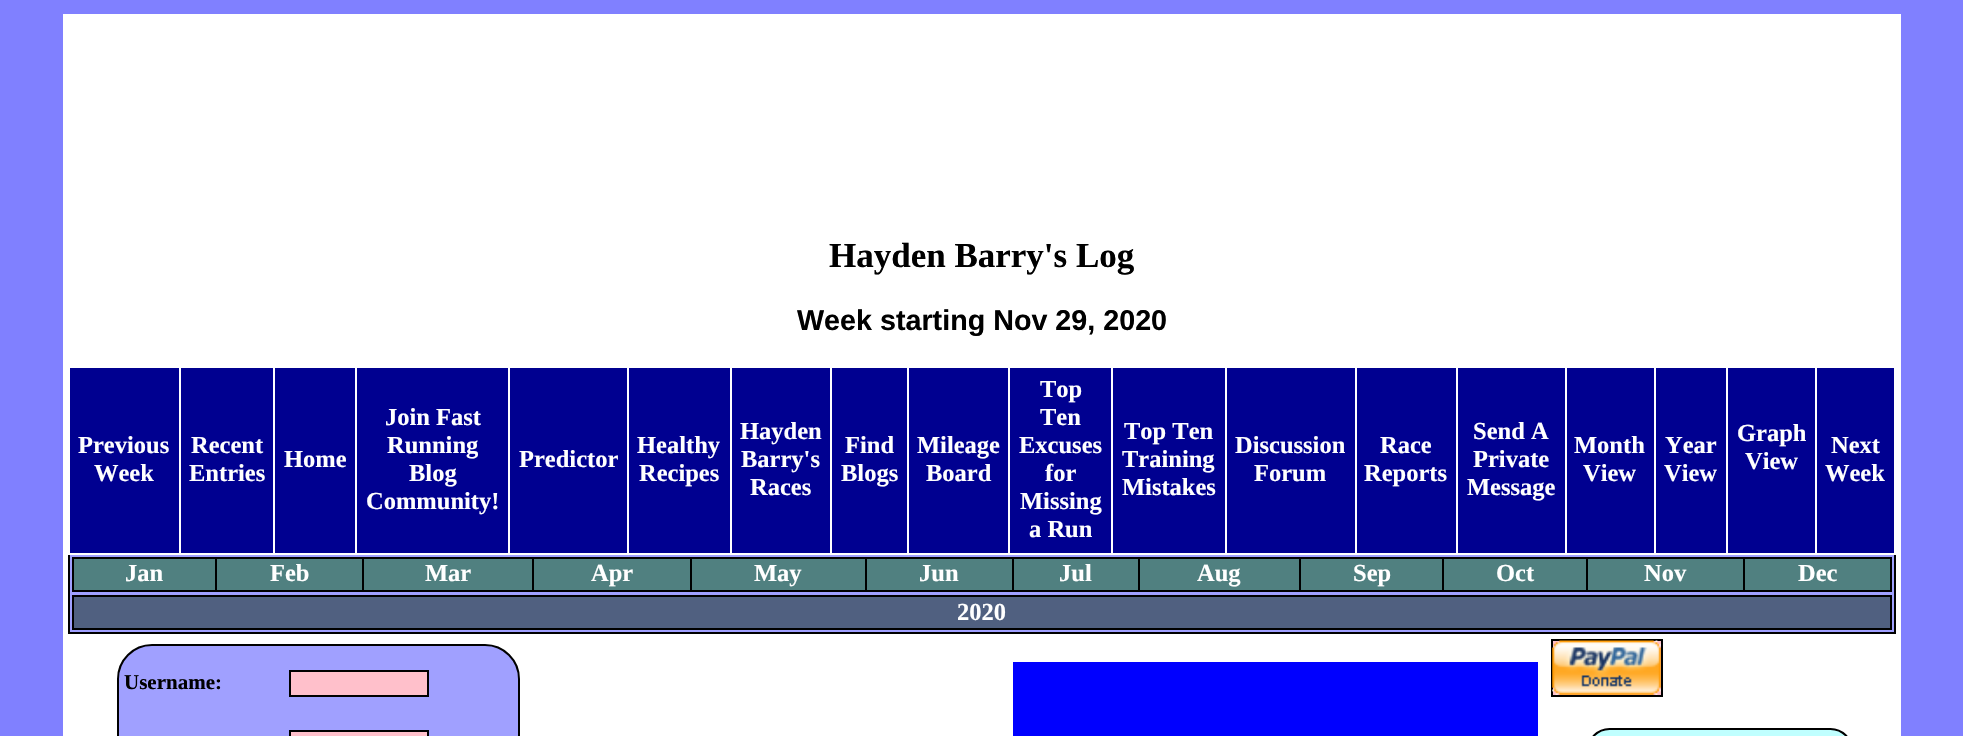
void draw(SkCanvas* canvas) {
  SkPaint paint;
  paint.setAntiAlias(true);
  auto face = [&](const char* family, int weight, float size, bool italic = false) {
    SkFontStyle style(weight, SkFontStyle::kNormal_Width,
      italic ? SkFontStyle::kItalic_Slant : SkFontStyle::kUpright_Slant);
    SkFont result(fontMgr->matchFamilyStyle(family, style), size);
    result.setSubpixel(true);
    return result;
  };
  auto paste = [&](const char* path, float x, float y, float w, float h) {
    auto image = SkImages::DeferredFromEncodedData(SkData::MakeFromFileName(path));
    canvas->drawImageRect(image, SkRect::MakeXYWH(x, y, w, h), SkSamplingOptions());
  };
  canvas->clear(0xff8080ff);
  {
    const struct { float x, y, w, h; SkColor color; } items[] = {
      {63, 14, 1838, 722, 0xffffffff},
      {70, 555, 1824, 77, 0xffa0a0ff},
      {1894, 555, 2, 79, 0xff000000},
      {68, 632, 1827, 2, 0xff000000},
      {68, 555, 2, 79, 0xff000000},
      {70, 368, 109, 185, 0xff000090},
      {181, 368, 92, 185, 0xff000090},
      {275, 368, 80, 185, 0xff000090},
      {357, 368, 151, 185, 0xff000090},
      {510, 368, 117, 185, 0xff000090},
      {629, 368, 101, 185, 0xff000090},
      {732, 368, 98, 185, 0xff000090},
      {832, 368, 75, 185, 0xff000090},
      {909, 368, 99, 185, 0xff000090},
      {1010, 368, 101, 185, 0xff000090},
      {1113, 368, 112, 185, 0xff000090},
      {1227, 368, 128, 185, 0xff000090},
      {1357, 368, 99, 185, 0xff000090},
      {1458, 368, 107, 185, 0xff000090},
      {1567, 368, 87, 185, 0xff000090},
      {1656, 368, 70, 185, 0xff000090},
      {1728, 368, 87, 185, 0xff000090},
      {1817, 368, 77, 185, 0xff000090},
      {72, 557, 1820, 2, 0xff000000},
      {1890, 557, 2, 35, 0xff000000},
      {72, 590, 1820, 2, 0xff000000},
      {72, 557, 2, 35, 0xff000000},
      {74, 559, 141, 31, 0xff508080},
      {217, 559, 145, 31, 0xff508080},
      {215, 557, 2, 35, 0xff000000},
      {364, 559, 168, 31, 0xff508080},
      {362, 557, 2, 35, 0xff000000},
      {534, 559, 156, 31, 0xff508080},
      {532, 557, 2, 35, 0xff000000},
      {692, 559, 173, 31, 0xff508080},
      {690, 557, 2, 35, 0xff000000},
      {867, 559, 145, 31, 0xff508080},
      {865, 557, 2, 35, 0xff000000},
      {1014, 559, 124, 31, 0xff508080},
      {1012, 557, 2, 35, 0xff000000},
      {1140, 559, 159, 31, 0xff508080},
      {1138, 557, 2, 35, 0xff000000},
      {1301, 559, 141, 31, 0xff508080},
      {1299, 557, 2, 35, 0xff000000},
      {1444, 559, 142, 31, 0xff508080},
      {1442, 557, 2, 35, 0xff000000},
      {1588, 559, 155, 31, 0xff508080},
      {1586, 557, 2, 35, 0xff000000},
      {1745, 559, 145, 31, 0xff508080},
      {1743, 557, 2, 35, 0xff000000},
      {72, 595, 1820, 2, 0xff000000},
      {1890, 595, 2, 35, 0xff000000},
      {72, 628, 1820, 2, 0xff000000},
      {72, 595, 2, 35, 0xff000000},
      {74, 597, 1816, 31, 0xff506080},
    };
    for (auto [x, y, w, h, color] : items) {
      paint.setColor(color);
      canvas->drawRect(SkRect::MakeXYWH(x, y, w, h), paint);
    }
  }
  paint.setColor(0xffa0a0ff);
  canvas->drawRoundRect(SkRect::MakeXYWH(118, 645, 401, 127), 34, 34, paint);
  paint.setStroke(true);
  paint.setStrokeWidth(2);
  paint.setColor(0xff000000);
  canvas->drawRoundRect(SkRect::MakeXYWH(118, 645, 401, 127), 34, 34, paint);
  paint.setStroke(false);
  paint.setColor(0xffffc0cb);
  canvas->drawRect(SkRect::MakeXYWH(290, 671, 138, 25), paint);
  paint.setStroke(true);
  paint.setColor(0xff000000);
  canvas->drawRect(SkRect::MakeXYWH(290, 671, 138, 25), paint);
  paint.setStroke(false);
  paint.setColor(0xffffc0cb);
  canvas->drawRect(SkRect::MakeXYWH(290, 731, 138, 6), paint);
  paint.setStroke(true);
  paint.setColor(0xff000000);
  canvas->drawRect(SkRect::MakeXYWH(290, 731, 138, 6), paint);
  paint.setStroke(false);
  paint.setColor(0xff0000ff);
  canvas->drawRect(SkRect::MakeXYWH(1013, 662, 525, 74), paint);
  paint.setColor(0xffffc0cb);
  canvas->drawRect(SkRect::MakeXYWH(1552, 640, 110, 56), paint);
  paint.setStroke(true);
  paint.setColor(0xff000000);
  canvas->drawRect(SkRect::MakeXYWH(1552, 640, 110, 56), paint);
  paste("img/1.png", 1552, 640, 109, 55);
  paint.setStroke(false);
  paint.setColor(0xffc0ffff);
  canvas->drawRoundRect(SkRect::MakeXYWH(1588, 729, 264, 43), 34, 34, paint);
  paint.setStroke(true);
  paint.setColor(0xff000000);
  canvas->drawRoundRect(SkRect::MakeXYWH(1588, 729, 264, 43), 34, 34, paint);
  auto f0 = face("Liberation Serif", 700, 35);
  paint.setStroke(false);
  canvas->drawString("Hayden Barry's Log", 829, 267, f0, paint);
  auto f1 = face("Liberation Sans", 700, 28.7f);
  canvas->drawString("Week starting Nov 29, 2020", 797, 330, f1, paint);
  auto f2 = face("Liberation Serif", 700, 24.5f);
  paint.setColor(0xffffffff);
  {
    const struct { const char* s; float x, y; } items[] = {
      {"Previous", 78, 453},
      {"Week", 94, 481},
      {"Recent", 191, 453},
      {"Entries", 189, 481},
      {"Home", 284, 467},
      {"Join Fast", 385, 425},
      {"Running", 387, 453},
      {"Blog", 409, 481},
      {"Community!", 366, 509},
      {"Predictor", 519, 467},
      {"Healthy", 637, 453},
      {"Recipes", 639, 481},
      {"Hayden", 740, 439},
      {"Barry's", 741, 467},
      {"Races", 750, 495},
      {"Find", 845, 453},
      {"Blogs", 841, 481},
      {"Mileage", 917, 453},
      {"Board", 926, 481},
      {"Top", 1040, 397},
      {"Ten", 1040, 425},
      {"Excuses", 1019, 453},
      {"for", 1045, 481},
      {"Missing", 1020, 509},
      {"a Run", 1029, 537},
      {"Top Ten", 1124, 439},
      {"Training", 1122, 467},
      {"Mistakes", 1122, 495},
      {"Discussion", 1235, 453},
      {"Forum", 1254, 481},
      {"Race", 1380, 453},
      {"Reports", 1364, 481},
      {"Send A", 1473, 439},
      {"Private", 1473, 467},
      {"Message", 1467, 495},
      {"Month", 1574, 453},
      {"View", 1583, 481},
      {"Year", 1665, 453},
      {"View", 1664, 481},
      {"Graph", 1737, 441},
      {"View", 1745, 469},
      {"Next", 1831, 453},
      {"Week", 1825, 481},
      {"Jan", 125, 581},
      {"Feb", 270, 581},
      {"Mar", 425, 581},
      {"Apr", 591, 581},
      {"May", 754, 581},
      {"Jun", 919, 581},
      {"Jul", 1059, 581},
      {"Aug", 1197, 581},
      {"Sep", 1353, 581},
      {"Oct", 1496, 581},
      {"Nov", 1644, 581},
      {"Dec", 1798, 581},
      {"2020", 957, 620},
    };
    for (auto [s, x, y] : items) {
      canvas->drawString(s, x, y, f2, paint);
    }
  }
  auto f3 = face("Liberation Serif", 700, 21);
  paint.setColor(0xff000000);
  canvas->drawString("Username:", 124, 689, f3, paint);
}
